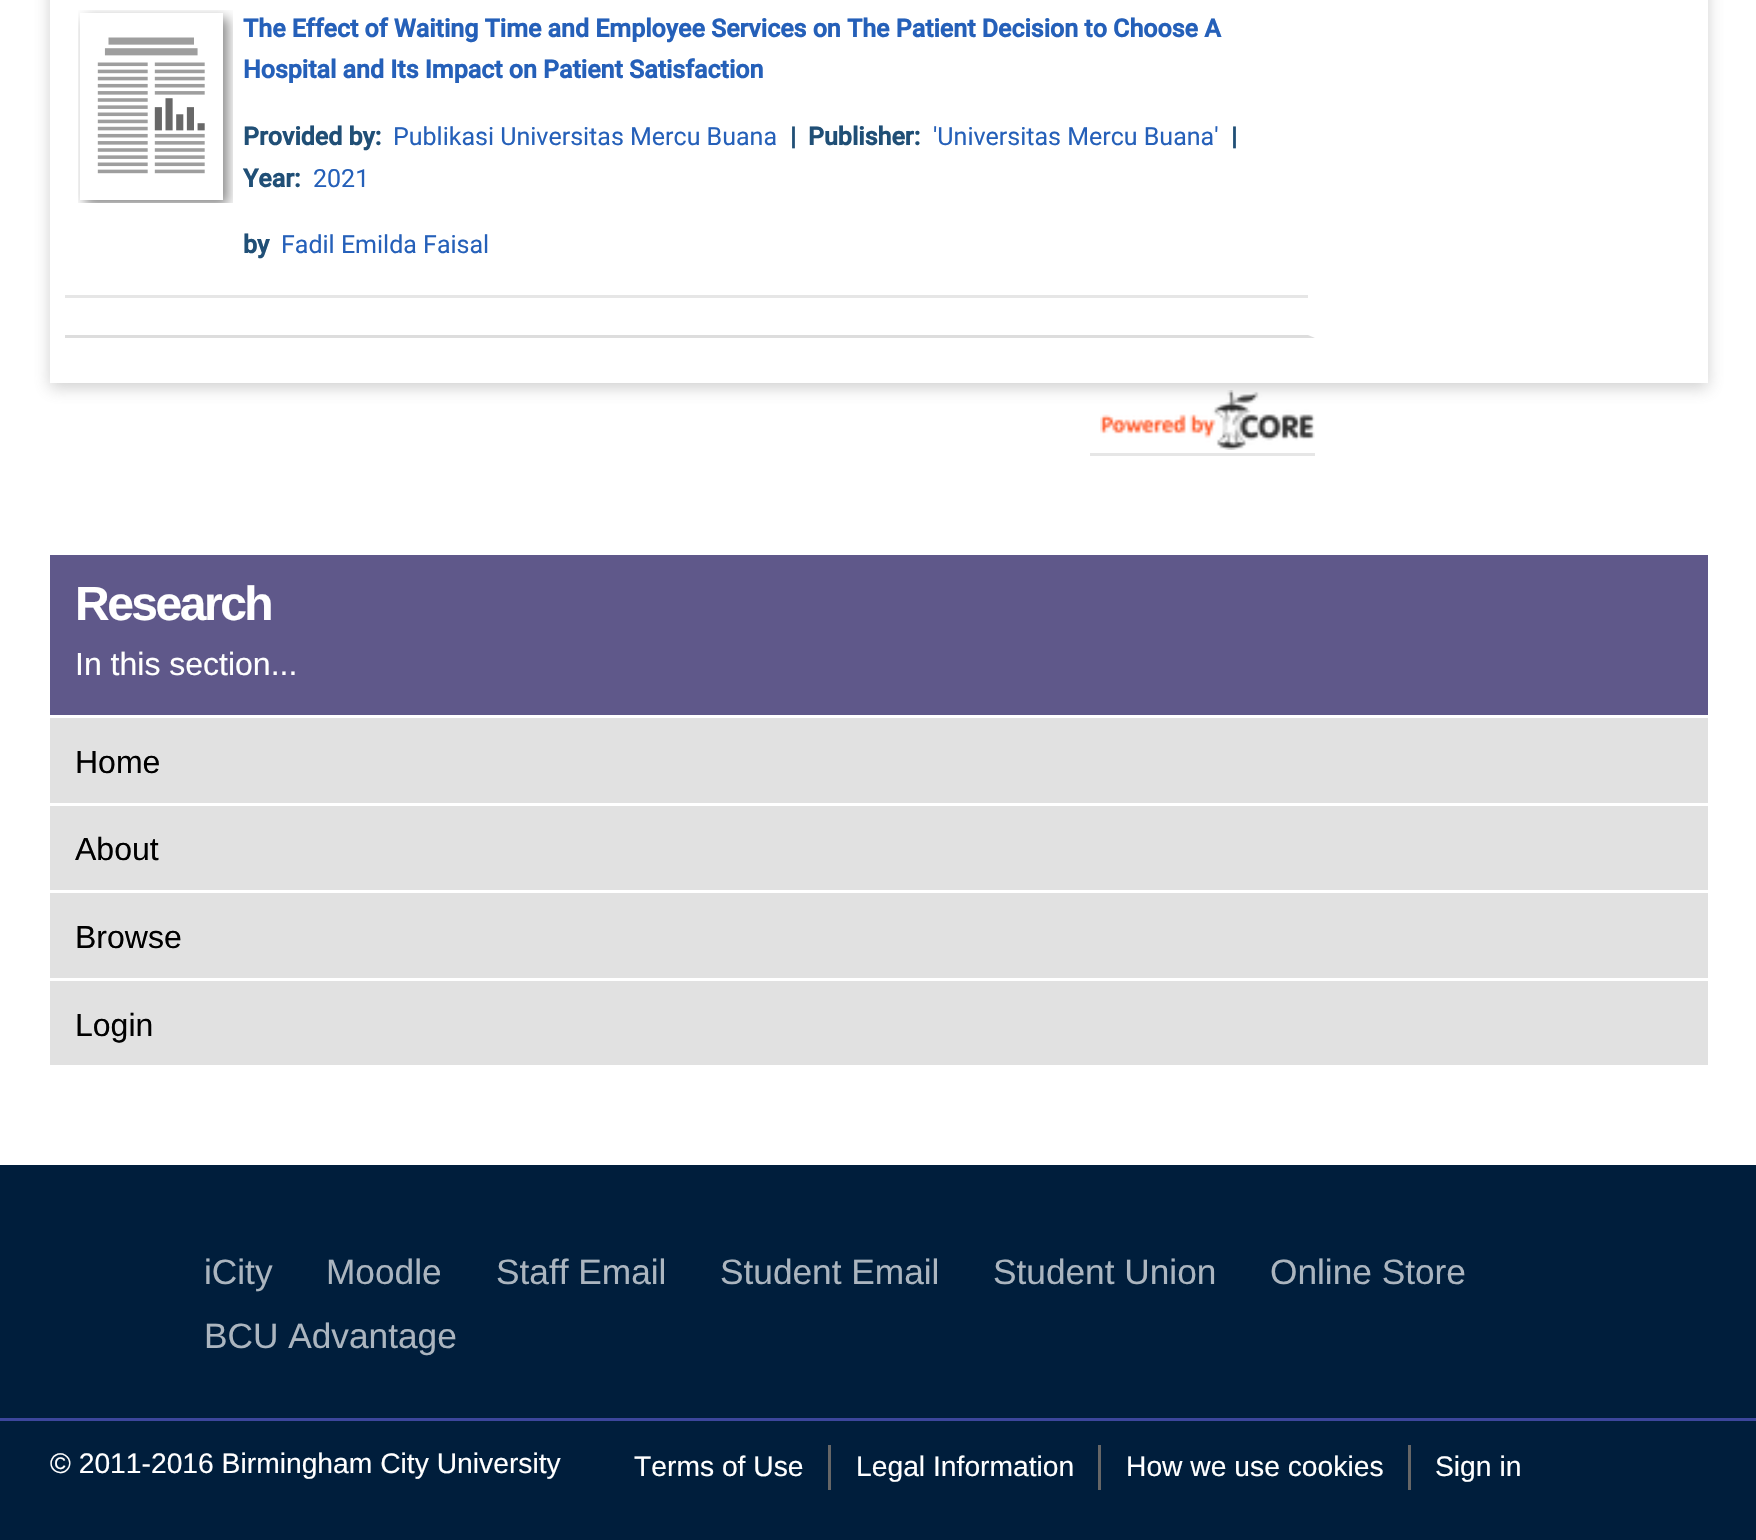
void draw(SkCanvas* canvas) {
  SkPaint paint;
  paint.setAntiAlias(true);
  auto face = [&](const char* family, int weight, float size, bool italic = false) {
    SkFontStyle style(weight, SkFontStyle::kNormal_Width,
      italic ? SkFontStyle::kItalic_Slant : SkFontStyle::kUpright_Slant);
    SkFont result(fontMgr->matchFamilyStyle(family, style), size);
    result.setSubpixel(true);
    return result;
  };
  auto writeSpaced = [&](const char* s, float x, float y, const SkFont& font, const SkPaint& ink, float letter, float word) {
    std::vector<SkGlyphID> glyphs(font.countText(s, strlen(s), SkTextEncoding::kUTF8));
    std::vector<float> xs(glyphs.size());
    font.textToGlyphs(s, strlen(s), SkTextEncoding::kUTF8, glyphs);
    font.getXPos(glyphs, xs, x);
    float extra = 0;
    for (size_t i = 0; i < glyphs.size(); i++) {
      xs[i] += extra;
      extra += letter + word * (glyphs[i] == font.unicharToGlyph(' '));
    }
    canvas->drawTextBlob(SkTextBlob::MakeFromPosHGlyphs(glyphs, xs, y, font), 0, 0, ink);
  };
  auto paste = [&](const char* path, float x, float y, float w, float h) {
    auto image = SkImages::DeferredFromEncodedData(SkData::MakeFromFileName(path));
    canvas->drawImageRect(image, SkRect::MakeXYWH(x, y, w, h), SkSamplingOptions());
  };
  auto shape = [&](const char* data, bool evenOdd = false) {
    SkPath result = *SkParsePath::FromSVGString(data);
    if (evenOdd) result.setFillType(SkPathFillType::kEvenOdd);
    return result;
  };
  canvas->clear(0xffffffff);
  paint.setColor(0x4d646464);
  paint.setMaskFilter(SkMaskFilter::MakeBlur(kNormal_SkBlurStyle, 7.5f));
  canvas->drawRect(SkRect::MakeXYWH(50, -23, 1658, 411), paint);
  paint.setMaskFilter(nullptr);
  paint.setColor(0xffffffff);
  canvas->drawRect(SkRect::MakeXYWH(50, 0, 1658, 383), paint);
  paint.setColor(0xffdddddd);
  canvas->drawPath(shape("M1315 338H65V335H1308Z"), paint);
  paint.setColor(0xffe6e6e6);
  canvas->drawRect(SkRect::MakeXYWH(65, 295, 1243, 3), paint);
  canvas->save();
  canvas->clipRect(SkRect::MakeXYWH(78, 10, 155, 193));
  canvas->clipPath(shape("M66 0H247V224H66ZM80 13H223V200H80Z", true), true);
  paint.setColor(0xff888888);
  paint.setMaskFilter(SkMaskFilter::MakeBlur(kNormal_SkBlurStyle, 6));
  canvas->drawRect(SkRect::MakeXYWH(85, 18, 143, 187), paint);
  paint.setMaskFilter(nullptr);
  canvas->restore();
  paste("img/1.png", 97, 16, 126, 184);
  paint.setColor(0xffe6e6e6);
  canvas->drawRect(SkRect::MakeXYWH(1090, 453, 225, 3), paint);
  paste("img/2.png", 1100, 390, 215, 60);
  {
    const struct { float x, y, w, h; SkColor color; } items[] = {
      {50, 555, 1658, 160, 0xff5f588a},
      {50, 718, 1658, 347, 0xffe1e1e1},
      {50, 803, 1658, 3, 0xffffffff},
      {50, 890, 1658, 3, 0xffffffff},
      {50, 978, 1658, 3, 0xffffffff},
      {0, 1165, 1756, 375, 0xff001e3c},
      {0, 1418, 1756, 3, 0xff3c469c},
      {828, 1445, 3, 45, 0xff666666},
      {1098, 1445, 3, 45, 0xff666666},
      {1408, 1445, 3, 45, 0xff666666},
    };
    for (auto [x, y, w, h, color] : items) {
      paint.setColor(color);
      canvas->drawRect(SkRect::MakeXYWH(x, y, w, h), paint);
    }
  }
  auto f0 = face("Roboto", 700, 25);
  paint.setColor(0xff2560b9);
  canvas->drawString("The Effect of Waiting Time and Employee Services on The Patient Decision to Choose A", 243, 37, f0, paint);
  canvas->drawString("Hospital and Its Impact on Patient Satisfaction", 243, 78, f0, paint);
  paint.setColor(0xff204f76);
  canvas->drawString("Provided by:", 243, 145, f0, paint);
  auto f1 = face("Roboto", 400, 25);
  paint.setColor(0xff2560b9);
  canvas->drawString("Publikasi Universitas Mercu Buana", 393, 145, f1, paint);
  paint.setColor(0xff204f76);
  canvas->drawString("|", 790, 145, f0, paint);
  canvas->drawString("Publisher:", 808, 145, f0, paint);
  paint.setColor(0xff2560b9);
  canvas->drawString("'Universitas Mercu Buana'", 933, 145, f1, paint);
  paint.setColor(0xff204f76);
  canvas->drawString("|", 1231, 145, f0, paint);
  canvas->drawString("Year:", 243, 187, f0, paint);
  paint.setColor(0xff2560b9);
  canvas->drawString("2021", 313, 187, f1, paint);
  paint.setColor(0xff204f76);
  canvas->drawString("by", 243, 253, f0, paint);
  paint.setColor(0xff2560b9);
  canvas->drawString("Fadil Emilda Faisal", 281, 253, f1, paint);
  auto f2 = face("Liberation Sans", 700, 48);
  paint.setColor(0xffffffff);
  writeSpaced("Research", 75, 620, f2, paint, -2.5f, 0);
  auto f3 = face("Liberation Sans", 400, 32);
  canvas->drawString("In this section...", 75, 675, f3, paint);
  paint.setColor(0xff000000);
  {
    const struct { const char* s; float x, y; } items[] = {
      {"Home", 75, 773},
      {"About", 75, 860},
      {"Browse", 75, 948},
      {"Login", 75, 1036},
    };
    for (auto [s, x, y] : items) {
      canvas->drawString(s, x, y, f3, paint);
    }
  }
  auto f4 = face("Liberation Sans", 400, 35.25f);
  paint.setColor(0xffabb5bf);
  {
    const struct { const char* s; float x, y; } items[] = {
      {"iCity", 204, 1284},
      {"Moodle", 326, 1284},
      {"Staff Email", 496, 1284},
      {"Student Email", 720, 1284},
      {"Student Union", 993, 1284},
      {"Online Store", 1270, 1284},
      {"BCU Advantage", 204, 1348},
    };
    for (auto [s, x, y] : items) {
      canvas->drawString(s, x, y, f4, paint);
    }
  }
  auto f5 = face("Liberation Sans", 400, 28.25f);
  paint.setColor(0xffffffff);
  {
    const struct { const char* s; float x, y; } items[] = {
      {"© 2011-2016 Birmingham City University", 50, 1473},
      {"Terms of Use", 634, 1476},
      {"Legal Information", 856, 1476},
      {"How we use cookies", 1126, 1476},
      {"Sign in", 1435, 1476},
    };
    for (auto [s, x, y] : items) {
      canvas->drawString(s, x, y, f5, paint);
    }
  }
}
